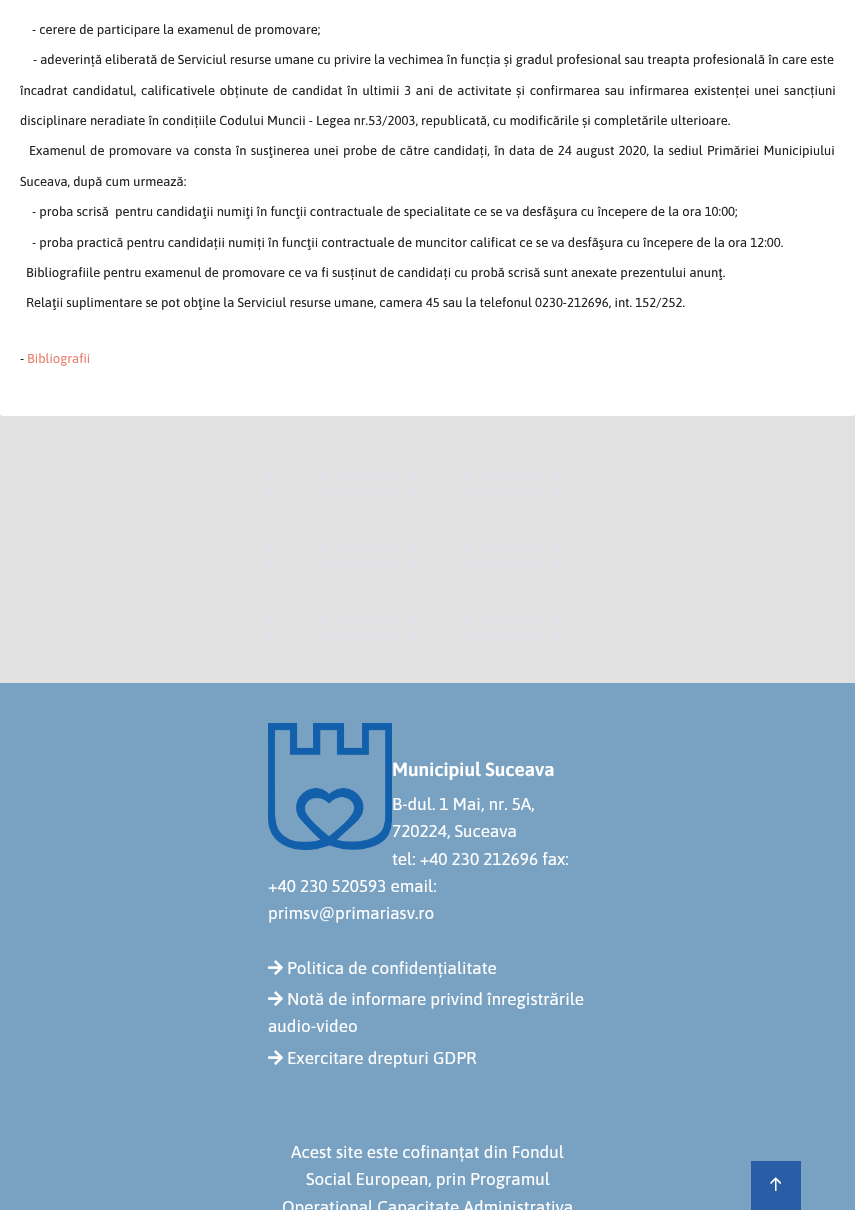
void draw(SkCanvas* canvas) {
  SkPaint paint;
  paint.setAntiAlias(true);
  auto face = [&](const char* family, int weight, float size, bool italic = false) {
    SkFontStyle style(weight, SkFontStyle::kNormal_Width,
      italic ? SkFontStyle::kItalic_Slant : SkFontStyle::kUpright_Slant);
    SkFont result(fontMgr->matchFamilyStyle(family, style), size);
    result.setSubpixel(true);
    return result;
  };
  auto writeSpaced = [&](const char* s, float x, float y, const SkFont& font, const SkPaint& ink, float letter, float word) {
    std::vector<SkGlyphID> glyphs(font.countText(s, strlen(s), SkTextEncoding::kUTF8));
    std::vector<float> xs(glyphs.size());
    font.textToGlyphs(s, strlen(s), SkTextEncoding::kUTF8, glyphs);
    font.getXPos(glyphs, xs, x);
    float extra = 0;
    for (size_t i = 0; i < glyphs.size(); i++) {
      xs[i] += extra;
      extra += letter + word * (glyphs[i] == font.unicharToGlyph(' '));
    }
    canvas->drawTextBlob(SkTextBlob::MakeFromPosHGlyphs(glyphs, xs, y, font), 0, 0, ink);
  };
  auto paste = [&](const char* path, float x, float y, float w, float h) {
    auto image = SkImages::DeferredFromEncodedData(SkData::MakeFromFileName(path));
    canvas->drawImageRect(image, SkRect::MakeXYWH(x, y, w, h), SkSamplingOptions());
  };
  canvas->clear(0xffe1e1e1);
  paint.setColor(0xffffffff);
  canvas->drawRoundRect(SkRect::MakeXYWH(0, -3, 855, 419), 3, 3, paint);
  paste("img/1.png", 249, 436, 329, 222);
  paint.setColor(0xff78a1c2);
  canvas->drawRect(SkRect::MakeXYWH(0, 683, 855, 527), paint);
  paste("img/2.png", 268, 723, 124, 127);
  paste("img/3.png", 268, 960, 15, 15);
  paste("img/3.png", 268, 991, 15, 15);
  paste("img/3.png", 268, 1050, 15, 15);
  paint.setColor(0xff295ea6);
  canvas->drawRect(SkRect::MakeXYWH(751, 1161, 50, 49), paint);
  auto f0 = face("Asap", 400, 13);
  paint.setColor(0xff232323);
  canvas->drawString("- cerere de participare la examenul de promovare;", 32, 34, f0, paint);
  canvas->drawString("- adeverință eliberată de Serviciul resurse umane cu privire la vechimea în funcția și gradul profesional sau treapta profesională în care este", 33, 64, f0, paint);
  writeSpaced("încadrat candidatul, calificativele obținute de candidat în ultimii 3 ani de activitate și confirmarea sau infirmarea existenței unei sancțiuni", 20, 95, f0, paint, 0, 1.6f);
  canvas->drawString("disciplinare neradiate în condițiile Codului Muncii - Legea nr.53/2003, republicată, cu modificările și completările ulterioare.", 20, 125, f0, paint);
  writeSpaced("Examenul de promovare va consta în susţinerea unei probe de către candidați, în data de 24 august 2020, la sediul Primăriei Municipiului", 29, 155, f0, paint, 0, 1.1f);
  {
    const struct { const char* s; float x, y; } items[] = {
      {"Suceava, după cum urmează:", 20, 186},
      {"- proba scrisă  pentru candidaţii numiţi în funcţii contractuale de specialitate ce se va desfăşura cu începere de la ora 10:00;", 32, 216},
      {"- proba practică pentru candidații numiți în funcţii contractuale de muncitor calificat ce se va desfăşura cu începere de la ora 12:00.", 32, 247},
      {"Bibliografiile pentru examenul de promovare ce va fi susținut de candidați cu probă scrisă sunt anexate prezentului anunţ.", 26, 277},
      {"Relaţii suplimentare se pot obţine la Serviciul resurse umane, camera 45 sau la telefonul 0230-212696, int. 152/252.", 26, 307},
      {"-", 20, 363},
    };
    for (auto [s, x, y] : items) {
      canvas->drawString(s, x, y, f0, paint);
    }
  }
  paint.setColor(0xffe8816e);
  canvas->drawString("Bibliografii", 27, 363, f0, paint);
  auto f1 = face("Asap", 600, 19);
  paint.setColor(0xffffffff);
  canvas->drawString("Municipiul Suceava", 392, 776, f1, paint);
  auto f2 = face("Asap", 400, 17.1f);
  {
    const struct { const char* s; float x, y; } items[] = {
      {"B-dul. 1 Mai, nr. 5A,", 392, 810},
      {"720224, Suceava", 392, 837},
      {"tel: +40 230 212696 fax:", 392, 865},
      {"+40 230 520593 email:", 268, 892},
      {"primsv@primariasv.ro", 268, 919},
      {"Politica de confidențialitate", 287, 974},
      {"Notă de informare privind înregistrările", 287, 1005},
      {"audio-video", 268, 1032},
      {"Exercitare drepturi GDPR", 287, 1064},
      {"Acest site este cofinanțat din Fondul", 291, 1158},
      {"Social European, prin Programul", 306, 1185},
      {"Operational Capacitate Administrativa", 282, 1213},
    };
    for (auto [s, x, y] : items) {
      canvas->drawString(s, x, y, f2, paint);
    }
  }
  auto f3 = face("Asap", 400, 19);
  canvas->drawString("↑", 770, 1191, f3, paint);
}
